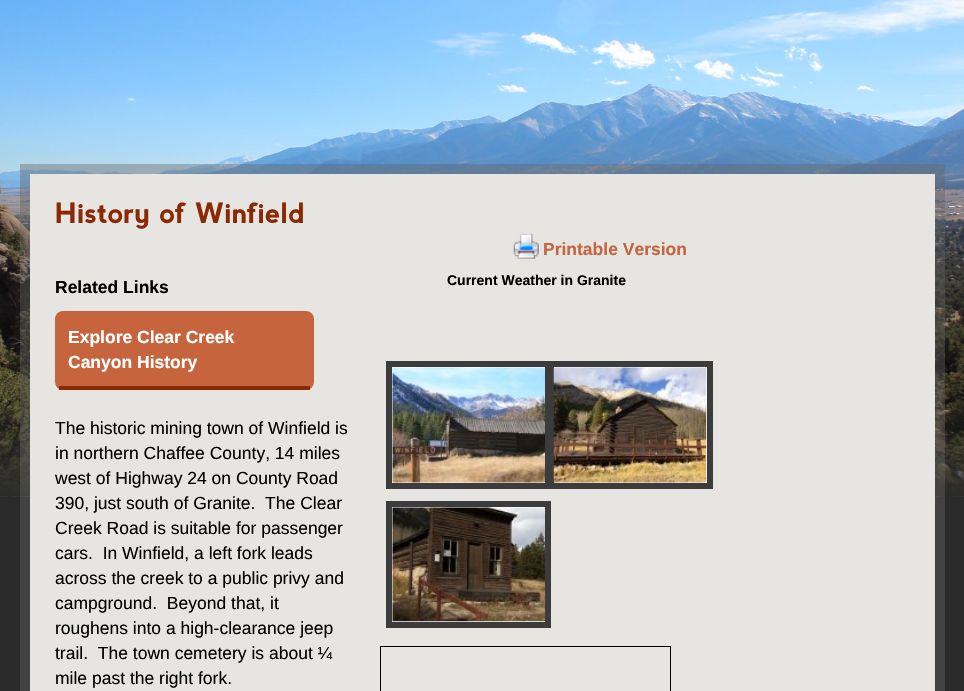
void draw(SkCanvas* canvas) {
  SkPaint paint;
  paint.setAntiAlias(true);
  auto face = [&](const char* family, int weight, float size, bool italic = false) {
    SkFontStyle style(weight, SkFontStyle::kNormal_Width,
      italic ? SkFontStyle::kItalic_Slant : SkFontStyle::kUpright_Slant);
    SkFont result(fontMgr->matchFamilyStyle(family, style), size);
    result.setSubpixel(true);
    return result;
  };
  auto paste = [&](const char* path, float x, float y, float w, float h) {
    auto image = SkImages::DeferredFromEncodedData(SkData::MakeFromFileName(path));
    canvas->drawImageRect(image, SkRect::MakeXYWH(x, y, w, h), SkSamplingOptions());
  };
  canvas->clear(0xff2b2b2b);
  paste("img/1.png", 0, 0, 964, 497);
  paint.setStroke(true);
  paint.setStrokeWidth(10);
  paint.setColor(0x66646464);
  canvas->drawRect(SkRect::MakeXYWH(25, 169, 915, 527), paint);
  paint.setStroke(false);
  paint.setColor(0xffe6e5e2);
  canvas->drawRect(SkRect::MakeXYWH(30, 174, 905, 517), paint);
  paste("img/2.png", 513, 233, 26, 26);
  paint.setColor(0xffc6643e);
  canvas->drawRoundRect(SkRect::MakeXYWH(55, 311, 259, 79), 8, 8, paint);
  paint.setColor(0xff8b2903);
  canvas->drawRect(SkRect::MakeXYWH(59, 386, 251, 4), paint);
  paint.setColor(0xffffffff);
  canvas->drawRect(SkRect::MakeXYWH(389, 364, 159, 122), paint);
  paint.setStroke(true);
  paint.setStrokeWidth(6);
  paint.setColor(0xff3c3c3c);
  canvas->drawRect(SkRect::MakeXYWH(389, 364, 159, 122), paint);
  paste("img/3.png", 392, 367, 153, 116);
  paint.setStroke(false);
  paint.setColor(0xffffffff);
  canvas->drawRect(SkRect::MakeXYWH(551, 364, 159, 122), paint);
  paint.setStroke(true);
  paint.setColor(0xff3c3c3c);
  canvas->drawRect(SkRect::MakeXYWH(551, 364, 159, 122), paint);
  paste("img/4.png", 553, 367, 154, 116);
  paint.setStroke(false);
  paint.setColor(0xffffffff);
  canvas->drawRect(SkRect::MakeXYWH(389, 504, 159, 121), paint);
  paint.setStroke(true);
  paint.setColor(0xff3c3c3c);
  canvas->drawRect(SkRect::MakeXYWH(389, 504, 159, 121), paint);
  paste("img/5.png", 392, 507, 153, 115);
  paint.setStrokeWidth(1);
  paint.setColor(0xff000000);
  canvas->drawRect(SkRect::MakeXYWH(380.5f, 646.5f, 290, 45), paint);
  auto f0 = face("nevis", 700, 28);
  paint.setStroke(false);
  paint.setColor(0xff8b2903);
  canvas->drawString("History of Winfield", 55, 223, f0, paint);
  auto f1 = face("Liberation Sans", 700, 17.5f);
  paint.setColor(0xffc6643e);
  canvas->drawString("Printable Version", 543, 255, f1, paint);
  paint.setColor(0xff000000);
  canvas->drawString("Related Links", 55, 293, f1, paint);
  paint.setColor(0xffffffff);
  canvas->drawString("Explore Clear Creek", 68, 343, f1, paint);
  canvas->drawString("Canyon History", 68, 368, f1, paint);
  auto f2 = face("Liberation Sans", 400, 17.5f);
  paint.setColor(0xff000000);
  {
    const struct { const char* s; float x, y; } items[] = {
      {"The historic mining town of Winfield is", 55, 434},
      {"in northern Chaffee County, 14 miles", 55, 459},
      {"west of Highway 24 on County Road", 55, 484},
      {"390, just south of Granite.  The Clear", 55, 509},
      {"Creek Road is suitable for passenger", 55, 534},
      {"cars.  In Winfield, a left fork leads", 55, 559},
      {"across the creek to a public privy and", 55, 584},
      {"campground.  Beyond that, it", 55, 609},
      {"roughens into a high-clearance jeep", 55, 634},
      {"trail.  The town cemetery is about ¼", 55, 659},
      {"mile past the right fork.", 55, 684},
    };
    for (auto [s, x, y] : items) {
      canvas->drawString(s, x, y, f2, paint);
    }
  }
  auto f3 = face("Liberation Sans", 700, 14);
  canvas->drawString("Current Weather in Granite", 447, 285, f3, paint);
}
